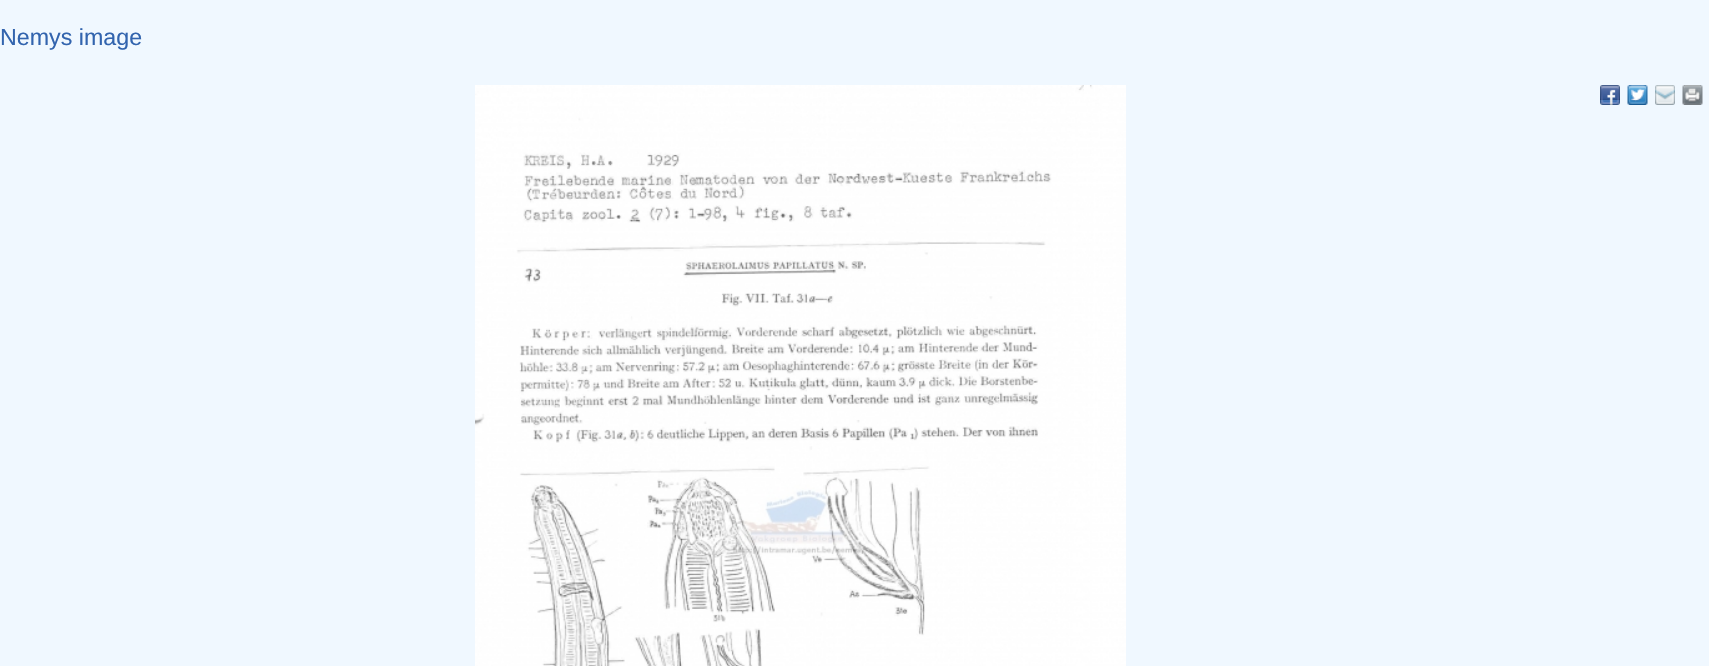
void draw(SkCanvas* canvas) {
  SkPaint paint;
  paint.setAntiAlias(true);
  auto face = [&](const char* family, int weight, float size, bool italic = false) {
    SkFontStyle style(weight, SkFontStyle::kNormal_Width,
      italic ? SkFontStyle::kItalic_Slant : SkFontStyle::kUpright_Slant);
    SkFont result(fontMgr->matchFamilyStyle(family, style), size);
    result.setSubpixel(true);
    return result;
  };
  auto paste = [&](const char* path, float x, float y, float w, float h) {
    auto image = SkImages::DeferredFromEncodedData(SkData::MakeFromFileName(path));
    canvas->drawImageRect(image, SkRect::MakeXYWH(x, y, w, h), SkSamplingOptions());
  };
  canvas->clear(0xfff0f8ff);
  paste("img/1.png", 475, 85, 651, 581);
  paste("img/2.png", 1600, 85, 20, 20);
  paste("img/3.png", 1627, 85, 21, 20);
  paste("img/4.png", 1655, 85, 20, 20);
  paste("img/5.png", 1682, 85, 21, 20);
  auto f0 = face("Liberation Sans", 400, 23.25f);
  paint.setColor(0xff3264ae);
  canvas->drawString("Nemys image", 0, 45, f0, paint);
}
